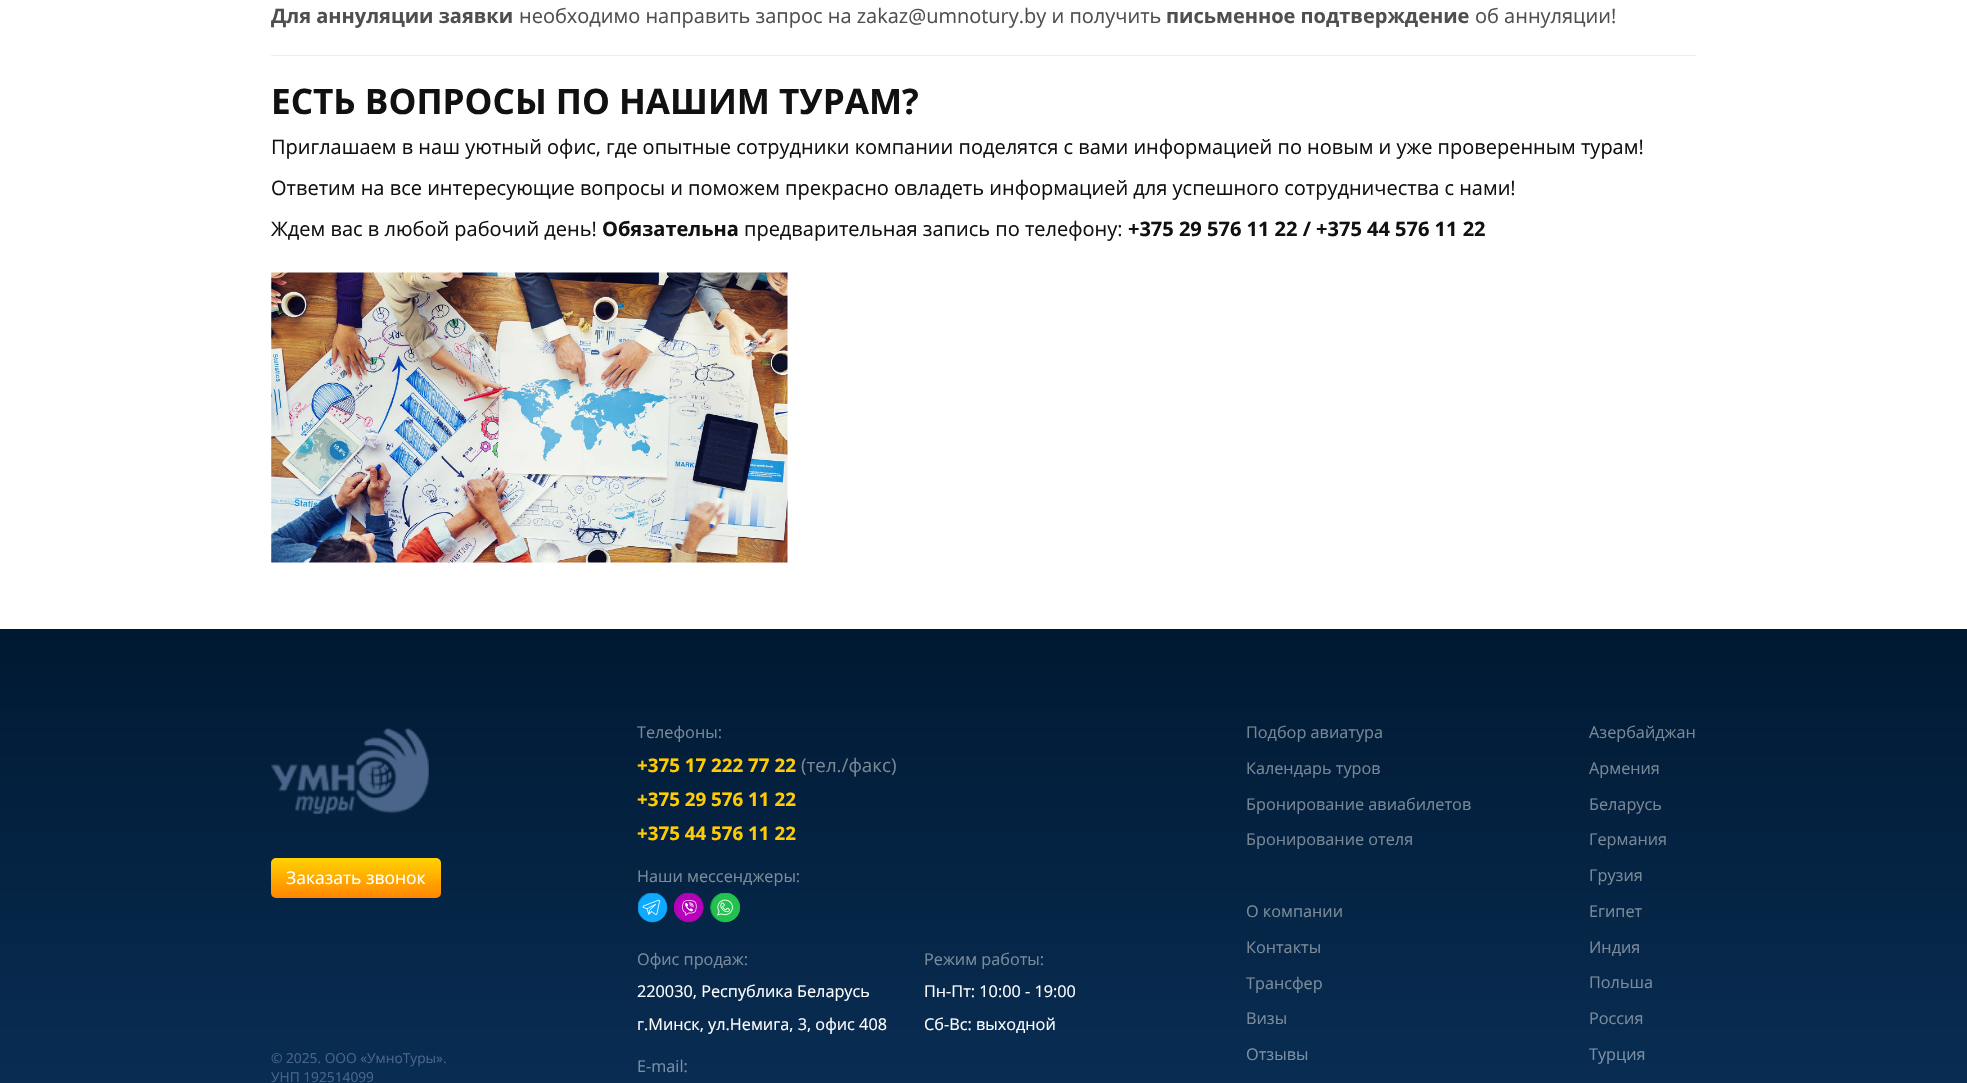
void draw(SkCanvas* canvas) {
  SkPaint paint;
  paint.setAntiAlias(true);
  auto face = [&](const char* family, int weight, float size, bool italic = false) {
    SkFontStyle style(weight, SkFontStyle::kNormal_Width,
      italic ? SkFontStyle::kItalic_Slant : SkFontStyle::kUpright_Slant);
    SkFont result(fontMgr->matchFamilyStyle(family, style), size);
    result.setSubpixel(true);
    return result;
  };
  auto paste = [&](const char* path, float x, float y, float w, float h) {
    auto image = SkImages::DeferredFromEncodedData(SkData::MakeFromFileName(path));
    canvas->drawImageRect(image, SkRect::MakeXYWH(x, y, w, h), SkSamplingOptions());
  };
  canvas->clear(0xffffffff);
  paint.setColor(0xffeeeeee);
  canvas->drawRect(SkRect::MakeXYWH(271, 55, 1425, 1), paint);
  paste("img/1.png", 271, 272, 517, 291);
  {
    const SkColor colors[] = {0xff0f3b6a, 0xff001932};
    const float stops[] = {0, 1};
    const SkPoint ends[] = {{984, 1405}, {984, 629}};
    paint.setShader(SkGradientShader::MakeLinear(ends, colors, stops, 2, SkTileMode::kClamp));
    paint.setAlpha(255);
  }
  canvas->drawRect(SkRect::MakeXYWH(0, 629, 1967, 454), paint);
  paste("img/2.png", 271, 728, 158, 86);
  {
    const SkColor colors[] = {0xffff8500, 0xffffd300};
    const float stops[] = {0, 1};
    const SkPoint ends[] = {{356, 898}, {356, 858}};
    paint.setShader(SkGradientShader::MakeLinear(ends, colors, stops, 2, SkTileMode::kClamp));
    paint.setAlpha(255);
  }
  canvas->drawRoundRect(SkRect::MakeXYWH(271, 858, 170, 40), 5, 5, paint);
  paste("img/3.png", 638, 893, 30, 30);
  paste("img/4.png", 674, 893, 30, 30);
  paste("img/5.png", 710, 893, 30, 30);
  auto f0 = face("Open Sans", 700, 20);
  paint.setShader(nullptr);
  paint.setColor(0xff4f4f4f);
  canvas->drawString("Для аннуляции заявки", 271, 23, f0, paint);
  auto f1 = face("Open Sans", 400, 20);
  canvas->drawString("необходимо направить запрос на zakaz@umnotury.by и получить", 519, 23, f1, paint);
  canvas->drawString("письменное подтверждение", 1166, 23, f0, paint);
  canvas->drawString("об аннуляции!", 1475, 23, f1, paint);
  auto f2 = face("Open Sans", 700, 35.1f);
  paint.setColor(0xff111111);
  canvas->drawString("ЕСТЬ ВОПРОСЫ ПО НАШИМ ТУРАМ?", 271, 114, f2, paint);
  {
    const struct { const char* s; float x, y; } items[] = {
      {"Приглашаем в наш уютный офис, где опытные сотрудники компании поделятся с вами информацией по новым и уже проверенным турам!", 271, 154},
      {"Ответим на все интересующие вопросы и поможем прекрасно овладеть информацией для успешного сотрудничества с нами!", 271, 195},
      {"Ждем вас в любой рабочий день!", 271, 236},
    };
    for (auto [s, x, y] : items) {
      canvas->drawString(s, x, y, f1, paint);
    }
  }
  canvas->drawString("Обязательна", 602, 236, f0, paint);
  canvas->drawString("предварительная запись по телефону:", 744, 236, f1, paint);
  canvas->drawString("+375 29 576 11 22 / +375 44 576 11 22", 1128, 236, f0, paint);
  auto f3 = face("Open Sans", 400, 17.5f);
  paint.setColor(0xffffffff);
  canvas->drawString("Заказать звонок", 286, 884, f3, paint);
  auto f4 = face("Open Sans", 400, 13.75f);
  paint.setColor(0xff4b658a);
  canvas->drawString("© 2025. ООО «УмноТуры».", 271, 1063, f4, paint);
  canvas->drawString("УНП 192514099", 271, 1082, f4, paint);
  auto f5 = face("Open Sans", 400, 16.25f);
  paint.setColor(0xff798896);
  canvas->drawString("Телефоны:", 637, 738, f5, paint);
  auto f6 = face("Open Sans", 700, 18.75f);
  paint.setColor(0xffffcb05);
  canvas->drawString("+375 17 222 77 22", 637, 772, f6, paint);
  auto f7 = face("Open Sans", 400, 18.75f);
  paint.setColor(0xff798896);
  canvas->drawString("(тел./факс)", 801, 772, f7, paint);
  paint.setColor(0xffffcb05);
  canvas->drawString("+375 29 576 11 22", 637, 806, f6, paint);
  canvas->drawString("+375 44 576 11 22", 637, 840, f6, paint);
  paint.setColor(0xff7b8b9c);
  canvas->drawString("Наши мессенджеры:", 637, 882, f5, paint);
  canvas->drawString("Офис продаж:", 637, 965, f5, paint);
  paint.setColor(0xffffffff);
  canvas->drawString("220030, Республика Беларусь", 637, 997, f5, paint);
  canvas->drawString("г.Минск, ул.Немига, 3, офис 408", 637, 1030, f5, paint);
  paint.setColor(0xff7c8fa3);
  canvas->drawString("E-mail:", 637, 1072, f5, paint);
  paint.setColor(0xff7b8b9c);
  canvas->drawString("Режим работы:", 924, 965, f5, paint);
  paint.setColor(0xffffffff);
  canvas->drawString("Пн-Пт: 10:00 - 19:00", 924, 997, f5, paint);
  canvas->drawString("Сб-Вс: выходной", 924, 1030, f5, paint);
  paint.setColor(0xff798896);
  {
    const struct { const char* s; float x, y; } items[] = {
      {"Подбор авиатура", 1246, 738},
      {"Календарь туров", 1246, 774},
      {"Бронирование авиабилетов", 1246, 810},
      {"Бронирование отеля", 1246, 845},
    };
    for (auto [s, x, y] : items) {
      canvas->drawString(s, x, y, f5, paint);
    }
  }
  paint.setColor(0xff7b8b9c);
  {
    const struct { const char* s; float x, y; } items[] = {
      {"О компании", 1246, 917},
      {"Контакты", 1246, 953},
      {"Трансфер", 1246, 989},
      {"Визы", 1246, 1024},
    };
    for (auto [s, x, y] : items) {
      canvas->drawString(s, x, y, f5, paint);
    }
  }
  paint.setColor(0xff7c8fa3);
  canvas->drawString("Отзывы", 1246, 1060, f5, paint);
  paint.setColor(0xff798896);
  {
    const struct { const char* s; float x, y; } items[] = {
      {"Азербайджан", 1589, 738},
      {"Армения", 1589, 774},
      {"Беларусь", 1589, 810},
      {"Германия", 1589, 845},
    };
    for (auto [s, x, y] : items) {
      canvas->drawString(s, x, y, f5, paint);
    }
  }
  paint.setColor(0xff7b8b9c);
  {
    const struct { const char* s; float x, y; } items[] = {
      {"Грузия", 1589, 881},
      {"Египет", 1589, 917},
      {"Индия", 1589, 953},
      {"Польша", 1589, 988},
      {"Россия", 1589, 1024},
    };
    for (auto [s, x, y] : items) {
      canvas->drawString(s, x, y, f5, paint);
    }
  }
  paint.setColor(0xff7c8fa3);
  canvas->drawString("Турция", 1589, 1060, f5, paint);
}
